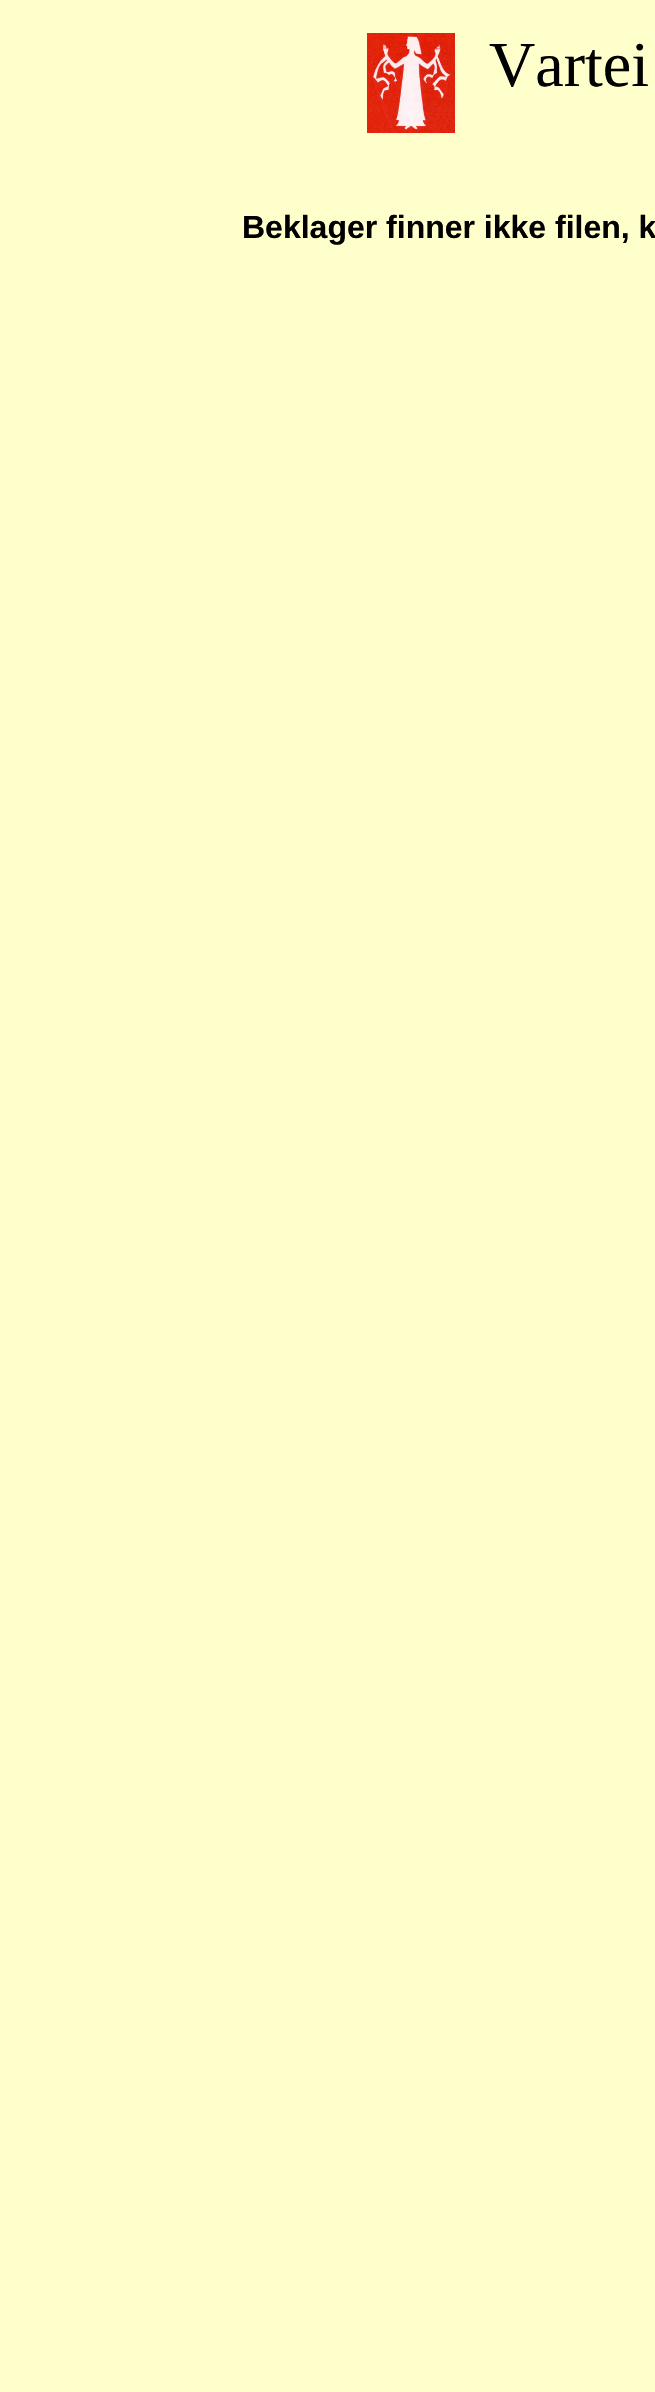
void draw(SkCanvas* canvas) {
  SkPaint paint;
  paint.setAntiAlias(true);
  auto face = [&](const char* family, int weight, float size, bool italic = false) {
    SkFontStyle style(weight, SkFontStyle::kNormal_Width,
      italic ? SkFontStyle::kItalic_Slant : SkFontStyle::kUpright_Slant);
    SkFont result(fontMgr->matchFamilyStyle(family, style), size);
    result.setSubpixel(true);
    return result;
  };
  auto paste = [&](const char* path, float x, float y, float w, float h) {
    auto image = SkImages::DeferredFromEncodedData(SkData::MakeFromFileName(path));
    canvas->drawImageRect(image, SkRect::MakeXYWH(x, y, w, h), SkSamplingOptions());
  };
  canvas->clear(0xffffffcc);
  paste("img/1.png", 367, 33, 88, 100);
  auto f0 = face("Liberation Serif", 400, 64);
  paint.setColor(0xff000000);
  canvas->drawString("Vartei", 489, 86, f0, paint);
  auto f1 = face("Liberation Sans", 700, 32);
  canvas->drawString("Beklager finner ikke filen, k", 242, 238, f1, paint);
}
